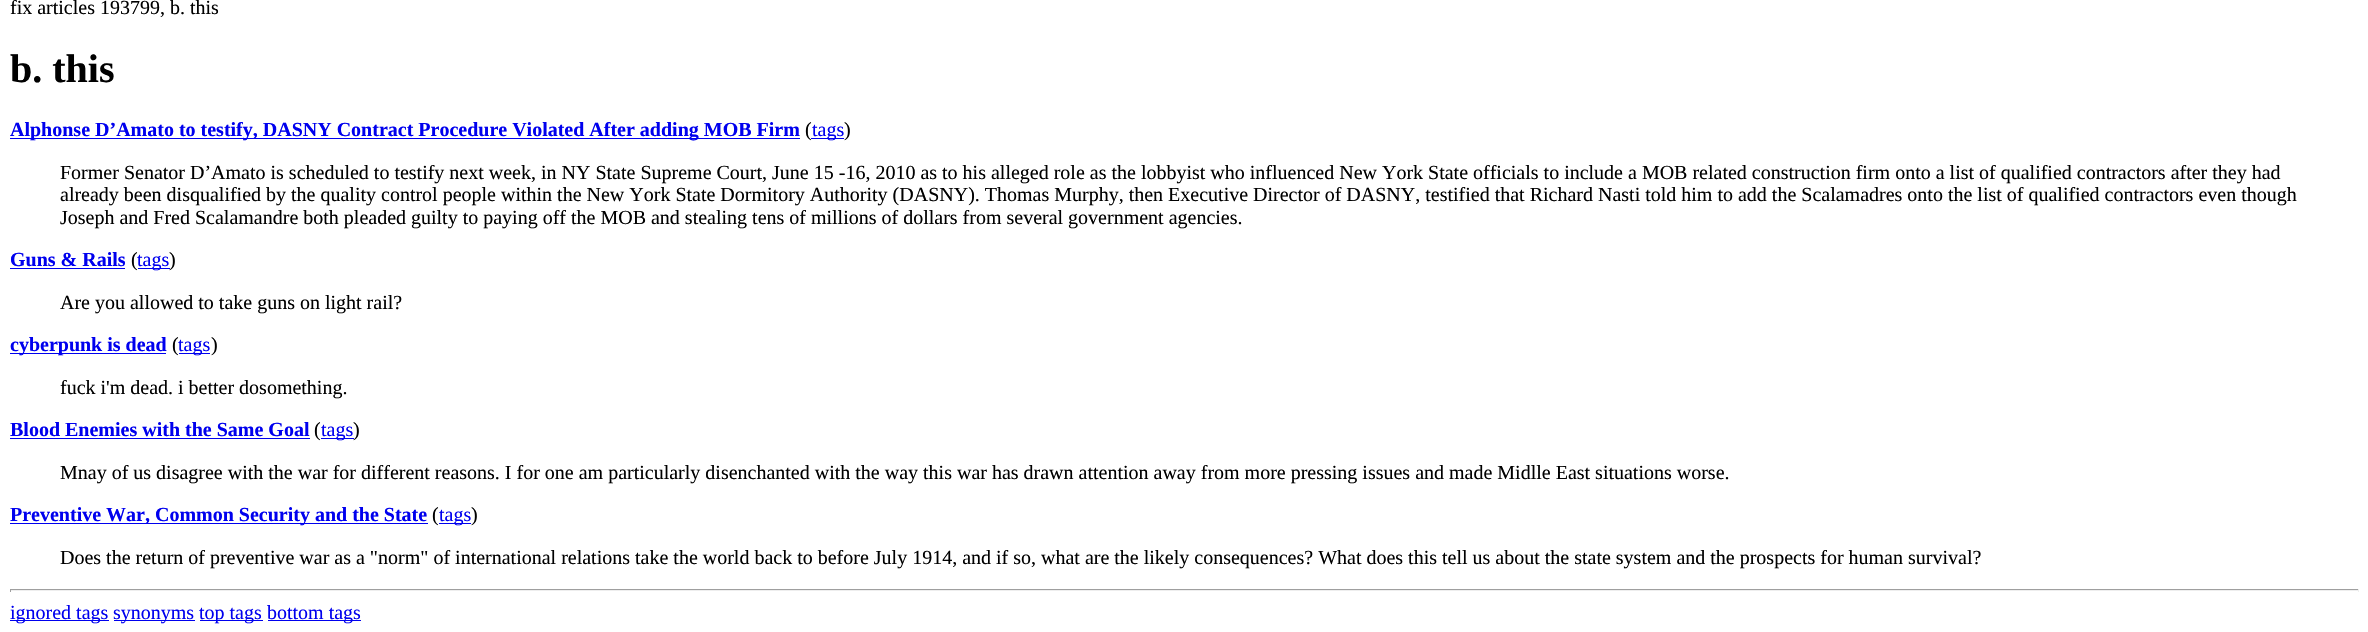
void draw(SkCanvas* canvas) {
  SkPaint paint;
  paint.setAntiAlias(true);
  auto face = [&](const char* family, int weight, float size, bool italic = false) {
    SkFontStyle style(weight, SkFontStyle::kNormal_Width,
      italic ? SkFontStyle::kItalic_Slant : SkFontStyle::kUpright_Slant);
    SkFont result(fontMgr->matchFamilyStyle(family, style), size);
    result.setSubpixel(true);
    return result;
  };
  canvas->clear(0xffffffff);
  {
    const struct { float x, y, w, h; SkColor color; } items[] = {
      {10, 138, 790, 1, 0xff0000ee},
      {811, 138, 33, 1, 0xff0000ee},
      {10, 268, 115, 1, 0xff0000ee},
      {138, 268, 32, 1, 0xff0000ee},
      {10, 353, 156, 1, 0xff0000ee},
      {179, 353, 31, 1, 0xff0000ee},
      {10, 438, 300, 1, 0xff0000ee},
      {321, 438, 33, 1, 0xff0000ee},
      {10, 523, 418, 1, 0xff0000ee},
      {439, 523, 32, 1, 0xff0000ee},
      {10, 589, 2349, 1, 0xff9f9f9f},
      {2358, 589, 1, 3, 0xffeeeeee},
      {10, 590, 2349, 1, 0xffeeeeee},
      {10, 589, 1, 3, 0xff9f9f9f},
      {10, 620, 99, 1, 0xff0000ee},
      {114, 620, 81, 1, 0xff0000ee},
      {200, 620, 63, 1, 0xff0000ee},
      {268, 620, 93, 1, 0xff0000ee},
    };
    for (auto [x, y, w, h, color] : items) {
      paint.setColor(color);
      canvas->drawRect(SkRect::MakeXYWH(x, y, w, h), paint);
    }
  }
  auto f0 = face("Liberation Serif", 400, 20);
  paint.setColor(0xff000000);
  canvas->drawString("fix articles 193799, b. this", 10, 14, f0, paint);
  auto f1 = face("Liberation Serif", 700, 40);
  canvas->drawString("b. this", 10, 82, f1, paint);
  auto f2 = face("Liberation Serif", 700, 20);
  paint.setColor(0xff0000ee);
  canvas->drawString("Alphonse D’Amato to testify, DASNY Contract Procedure Violated After adding MOB Firm", 10, 136, f2, paint);
  paint.setColor(0xff000000);
  canvas->drawString("(", 805, 136, f0, paint);
  paint.setColor(0xff0000ee);
  canvas->drawString("tags", 812, 136, f0, paint);
  paint.setColor(0xff000000);
  {
    const struct { const char* s; float x, y; } items[] = {
      {")", 844, 136},
      {"Former Senator D’Amato is scheduled to testify next week, in NY State Supreme Court, June 15 -16, 2010 as to his alleged role as the lobbyist who influenced New York State officials to include a MOB related construction firm onto a list of qualified contractors after they had", 60, 179},
      {"already been disqualified by the quality control people within the New York State Dormitory Authority (DASNY). Thomas Murphy, then Executive Director of DASNY, testified that Richard Nasti told him to add the Scalamadres onto the list of qualified contractors even though", 60, 201},
      {"Joseph and Fred Scalamandre both pleaded guilty to paying off the MOB and stealing tens of millions of dollars from several government agencies.", 60, 224},
    };
    for (auto [s, x, y] : items) {
      canvas->drawString(s, x, y, f0, paint);
    }
  }
  paint.setColor(0xff0000ee);
  canvas->drawString("Guns & Rails", 10, 266, f2, paint);
  paint.setColor(0xff000000);
  canvas->drawString("(", 131, 266, f0, paint);
  paint.setColor(0xff0000ee);
  canvas->drawString("tags", 137, 266, f0, paint);
  paint.setColor(0xff000000);
  canvas->drawString(")", 169, 266, f0, paint);
  canvas->drawString("Are you allowed to take guns on light rail?", 60, 309, f0, paint);
  paint.setColor(0xff0000ee);
  canvas->drawString("cyberpunk is dead", 10, 351, f2, paint);
  paint.setColor(0xff000000);
  canvas->drawString("(", 172, 351, f0, paint);
  paint.setColor(0xff0000ee);
  canvas->drawString("tags", 178, 351, f0, paint);
  paint.setColor(0xff000000);
  canvas->drawString(")", 211, 351, f0, paint);
  canvas->drawString("fuck i'm dead. i better dosomething.", 60, 394, f0, paint);
  paint.setColor(0xff0000ee);
  canvas->drawString("Blood Enemies with the Same Goal", 10, 436, f2, paint);
  paint.setColor(0xff000000);
  canvas->drawString("(", 314, 436, f0, paint);
  paint.setColor(0xff0000ee);
  canvas->drawString("tags", 321, 436, f0, paint);
  paint.setColor(0xff000000);
  canvas->drawString(")", 353, 436, f0, paint);
  canvas->drawString("Mnay of us disagree with the war for different reasons. I for one am particularly disenchanted with the way this war has drawn attention away from more pressing issues and made Midlle East situations worse.", 60, 479, f0, paint);
  paint.setColor(0xff0000ee);
  canvas->drawString("Preventive War, Common Security and the State", 10, 521, f2, paint);
  paint.setColor(0xff000000);
  canvas->drawString("(", 432, 521, f0, paint);
  paint.setColor(0xff0000ee);
  canvas->drawString("tags", 439, 521, f0, paint);
  paint.setColor(0xff000000);
  canvas->drawString(")", 471, 521, f0, paint);
  canvas->drawString("Does the return of preventive war as a \"norm\" of international relations take the world back to before July 1914, and if so, what are the likely consequences? What does this tell us about the state system and the prospects for human survival?", 60, 564, f0, paint);
  paint.setColor(0xff0000ee);
  {
    const struct { const char* s; float x, y; } items[] = {
      {"ignored tags", 10, 619},
      {"synonyms", 113, 619},
      {"top tags", 199, 619},
      {"bottom tags", 267, 619},
    };
    for (auto [s, x, y] : items) {
      canvas->drawString(s, x, y, f0, paint);
    }
  }
}
